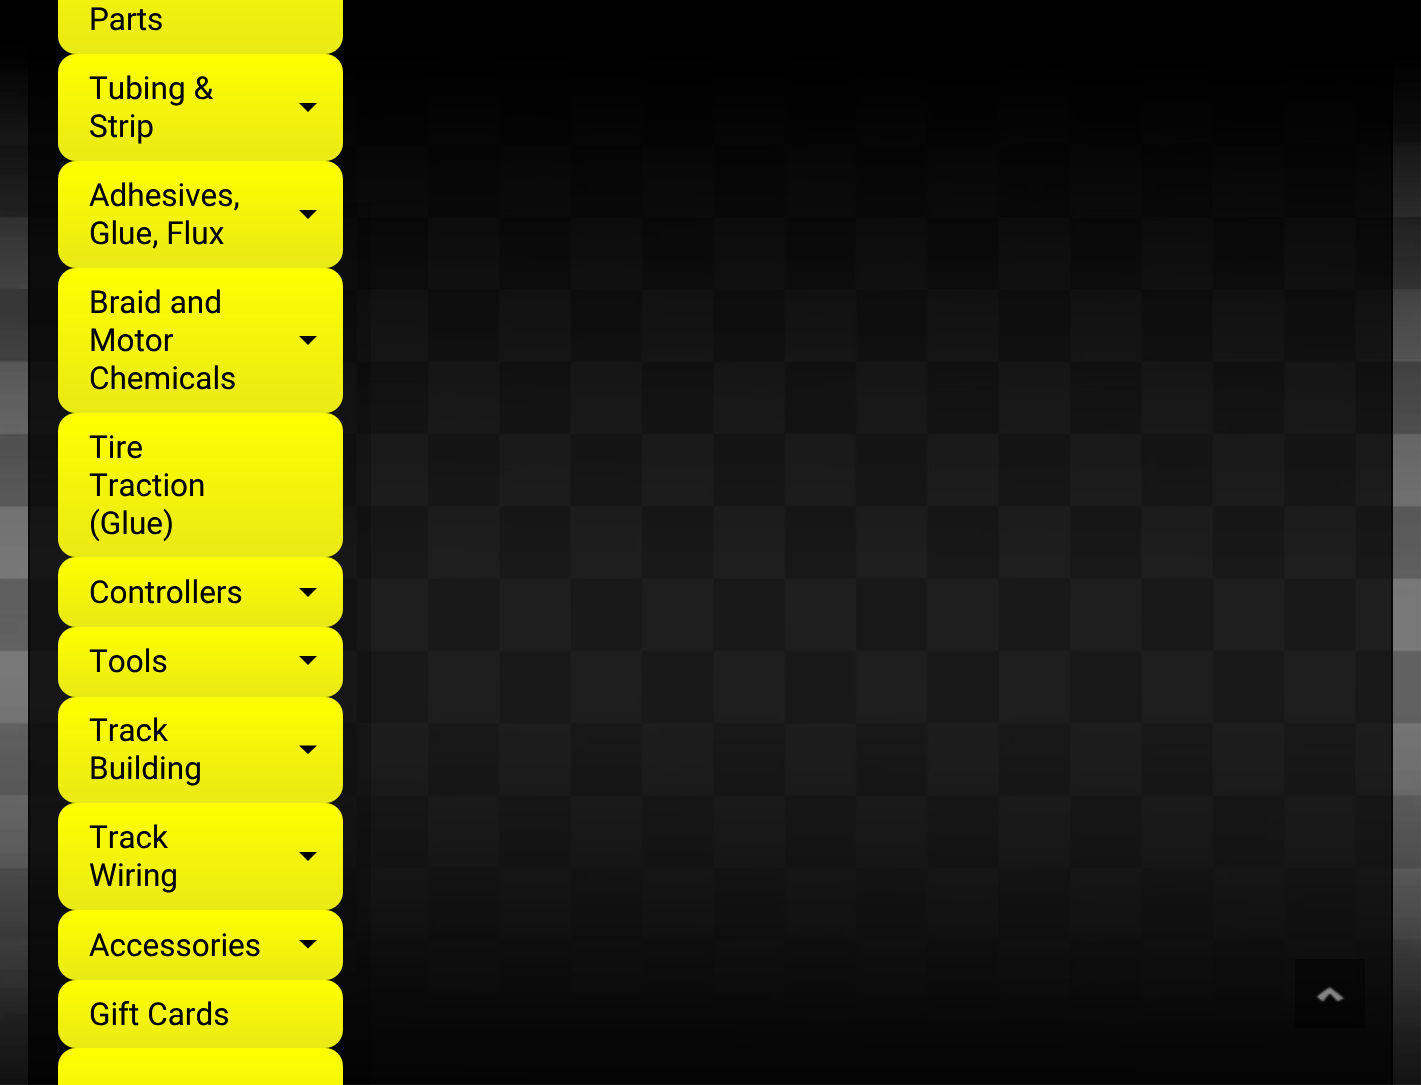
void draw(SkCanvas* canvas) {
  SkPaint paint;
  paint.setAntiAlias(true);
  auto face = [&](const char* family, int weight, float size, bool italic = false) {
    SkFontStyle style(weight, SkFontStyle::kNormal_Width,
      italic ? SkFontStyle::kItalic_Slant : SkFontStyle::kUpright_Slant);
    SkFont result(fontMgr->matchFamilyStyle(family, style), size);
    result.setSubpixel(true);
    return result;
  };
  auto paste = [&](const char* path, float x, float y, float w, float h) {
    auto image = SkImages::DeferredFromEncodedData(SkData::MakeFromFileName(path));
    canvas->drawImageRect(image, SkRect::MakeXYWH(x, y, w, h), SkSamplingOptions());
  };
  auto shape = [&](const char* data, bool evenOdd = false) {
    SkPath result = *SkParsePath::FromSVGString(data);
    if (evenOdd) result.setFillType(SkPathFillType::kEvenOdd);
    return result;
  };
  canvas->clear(0xffffffff);
  paste("img/1.png", 0, 0, 1421, 1085);
  paint.setStroke(true);
  paint.setStrokeWidth(2);
  paint.setColor(0xb3000000);
  canvas->drawRect(SkRect::MakeXYWH(29, -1, 1363, 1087), paint);
  paint.setStroke(false);
  paint.setColor(0x40000000);
  canvas->drawRect(SkRect::MakeXYWH(30, 202, 341, 883), paint);
  {
    const SkColor colors[] = {0xffffff00, 0xffe9e915};
    const float stops[] = {0, 1};
    const SkPoint ends[] = {{200, -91}, {200, 54}};
    paint.setShader(SkGradientShader::MakeLinear(ends, colors, stops, 2, SkTileMode::kClamp));
    paint.setAlpha(255);
  }
  canvas->drawRoundRect(SkRect::MakeXYWH(58, -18, 285, 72), 18, 18, paint);
  {
    const SkColor colors[] = {0xffffff00, 0xffe9e915};
    const float stops[] = {0, 1};
    const SkPoint ends[] = {{200, 54}, {200, 161}};
    paint.setShader(SkGradientShader::MakeLinear(ends, colors, stops, 2, SkTileMode::kClamp));
    paint.setAlpha(255);
  }
  canvas->drawRoundRect(SkRect::MakeXYWH(58, 54, 285, 107), 18, 18, paint);
  paint.setShader(nullptr);
  paint.setColor(0xff000000);
  canvas->drawPath(shape("M299 103H317L308 112Z"), paint);
  {
    const SkColor colors[] = {0xffffff00, 0xffe9e915};
    const float stops[] = {0, 1};
    const SkPoint ends[] = {{200, 161}, {200, 268}};
    paint.setShader(SkGradientShader::MakeLinear(ends, colors, stops, 2, SkTileMode::kClamp));
    paint.setAlpha(255);
  }
  canvas->drawRoundRect(SkRect::MakeXYWH(58, 161, 285, 107), 18, 18, paint);
  paint.setShader(nullptr);
  paint.setColor(0xff000000);
  canvas->drawPath(shape("M299 210H317L308 219Z"), paint);
  {
    const SkColor colors[] = {0xffffff00, 0xffe9e915};
    const float stops[] = {0, 1};
    const SkPoint ends[] = {{200, 268}, {200, 413}};
    paint.setShader(SkGradientShader::MakeLinear(ends, colors, stops, 2, SkTileMode::kClamp));
    paint.setAlpha(255);
  }
  canvas->drawRoundRect(SkRect::MakeXYWH(58, 268, 285, 145), 18, 18, paint);
  paint.setShader(nullptr);
  paint.setColor(0xff000000);
  canvas->drawPath(shape("M299 336H317L308 345Z"), paint);
  {
    const SkColor colors[] = {0xffffff00, 0xffe9e915};
    const float stops[] = {0, 1};
    const SkPoint ends[] = {{200, 413}, {200, 557}};
    paint.setShader(SkGradientShader::MakeLinear(ends, colors, stops, 2, SkTileMode::kClamp));
    paint.setAlpha(255);
  }
  canvas->drawRoundRect(SkRect::MakeXYWH(58, 413, 285, 144), 18, 18, paint);
  {
    const SkColor colors[] = {0xffffff00, 0xffe9e915};
    const float stops[] = {0, 1};
    const SkPoint ends[] = {{200, 557}, {200, 627}};
    paint.setShader(SkGradientShader::MakeLinear(ends, colors, stops, 2, SkTileMode::kClamp));
    paint.setAlpha(255);
  }
  canvas->drawRoundRect(SkRect::MakeXYWH(58, 557, 285, 70), 18, 18, paint);
  paint.setShader(nullptr);
  paint.setColor(0xff000000);
  canvas->drawPath(shape("M299 588H317L308 597Z"), paint);
  {
    const SkColor colors[] = {0xffffff00, 0xffe9e915};
    const float stops[] = {0, 1};
    const SkPoint ends[] = {{200, 627}, {200, 697}};
    paint.setShader(SkGradientShader::MakeLinear(ends, colors, stops, 2, SkTileMode::kClamp));
    paint.setAlpha(255);
  }
  canvas->drawRoundRect(SkRect::MakeXYWH(58, 627, 285, 70), 18, 18, paint);
  paint.setShader(nullptr);
  paint.setColor(0xff000000);
  canvas->drawPath(shape("M299 656H317L308 665Z"), paint);
  {
    const SkColor colors[] = {0xffffff00, 0xffe9e915};
    const float stops[] = {0, 1};
    const SkPoint ends[] = {{200, 697}, {200, 803}};
    paint.setShader(SkGradientShader::MakeLinear(ends, colors, stops, 2, SkTileMode::kClamp));
    paint.setAlpha(255);
  }
  canvas->drawRoundRect(SkRect::MakeXYWH(58, 697, 285, 106), 18, 18, paint);
  paint.setShader(nullptr);
  paint.setColor(0xff000000);
  canvas->drawPath(shape("M299 745.5H317L308 754Z"), paint);
  {
    const SkColor colors[] = {0xffffff00, 0xffe9e915};
    const float stops[] = {0, 1};
    const SkPoint ends[] = {{200, 803}, {200, 910}};
    paint.setShader(SkGradientShader::MakeLinear(ends, colors, stops, 2, SkTileMode::kClamp));
    paint.setAlpha(255);
  }
  canvas->drawRoundRect(SkRect::MakeXYWH(58, 803, 285, 107), 18, 18, paint);
  paint.setShader(nullptr);
  paint.setColor(0xff000000);
  canvas->drawPath(shape("M299 852H317L308 861Z"), paint);
  {
    const SkColor colors[] = {0xffffff00, 0xffe9e915};
    const float stops[] = {0, 1};
    const SkPoint ends[] = {{200, 910}, {200, 980}};
    paint.setShader(SkGradientShader::MakeLinear(ends, colors, stops, 2, SkTileMode::kClamp));
    paint.setAlpha(255);
  }
  canvas->drawRoundRect(SkRect::MakeXYWH(58, 910, 285, 70), 18, 18, paint);
  paint.setShader(nullptr);
  paint.setColor(0xff000000);
  canvas->drawPath(shape("M299 940H317L308 948.5Z"), paint);
  {
    const SkColor colors[] = {0xffffff00, 0xffe9e915};
    const float stops[] = {0, 1};
    const SkPoint ends[] = {{200, 980}, {200, 1048}};
    paint.setShader(SkGradientShader::MakeLinear(ends, colors, stops, 2, SkTileMode::kClamp));
    paint.setAlpha(255);
  }
  canvas->drawRoundRect(SkRect::MakeXYWH(58, 980, 285, 68), 18, 18, paint);
  {
    const SkColor colors[] = {0xffffff00, 0xffe9e915};
    const float stops[] = {0, 1};
    const SkPoint ends[] = {{200, 1048}, {200, 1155}};
    paint.setShader(SkGradientShader::MakeLinear(ends, colors, stops, 2, SkTileMode::kClamp));
    paint.setAlpha(255);
  }
  canvas->drawRoundRect(SkRect::MakeXYWH(58, 1048, 285, 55), 18, 18, paint);
  paste("img/2.png", 1295, 959, 70, 69);
  auto f0 = face("Roboto", 400, 31.5f);
  paint.setShader(nullptr);
  paint.setColor(0xff000000);
  {
    const struct { const char* s; float x, y; } items[] = {
      {"Parts", 89, 30},
      {"Tubing &", 89, 99},
      {"Strip", 89, 137},
      {"Adhesives,", 89, 206},
      {"Glue, Flux", 89, 244},
      {"Braid and", 89, 313},
      {"Motor", 89, 351},
      {"Chemicals", 89, 389},
      {"Tire", 89, 458},
      {"Traction", 89, 496},
      {"(Glue)", 89, 534},
      {"Controllers", 89, 603},
      {"Tools", 89, 672},
      {"Track", 89, 741},
      {"Building", 89, 779},
      {"Track", 89, 848},
      {"Wiring", 89, 886},
      {"Accessories", 89, 956},
      {"Gift Cards", 89, 1025},
    };
    for (auto [s, x, y] : items) {
      canvas->drawString(s, x, y, f0, paint);
    }
  }
}
